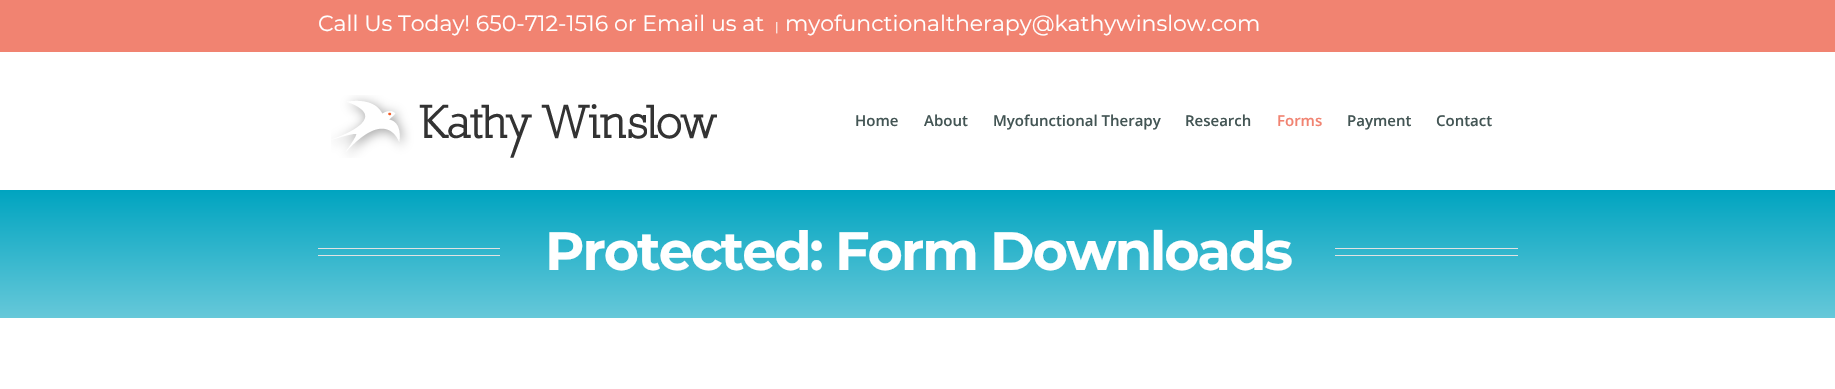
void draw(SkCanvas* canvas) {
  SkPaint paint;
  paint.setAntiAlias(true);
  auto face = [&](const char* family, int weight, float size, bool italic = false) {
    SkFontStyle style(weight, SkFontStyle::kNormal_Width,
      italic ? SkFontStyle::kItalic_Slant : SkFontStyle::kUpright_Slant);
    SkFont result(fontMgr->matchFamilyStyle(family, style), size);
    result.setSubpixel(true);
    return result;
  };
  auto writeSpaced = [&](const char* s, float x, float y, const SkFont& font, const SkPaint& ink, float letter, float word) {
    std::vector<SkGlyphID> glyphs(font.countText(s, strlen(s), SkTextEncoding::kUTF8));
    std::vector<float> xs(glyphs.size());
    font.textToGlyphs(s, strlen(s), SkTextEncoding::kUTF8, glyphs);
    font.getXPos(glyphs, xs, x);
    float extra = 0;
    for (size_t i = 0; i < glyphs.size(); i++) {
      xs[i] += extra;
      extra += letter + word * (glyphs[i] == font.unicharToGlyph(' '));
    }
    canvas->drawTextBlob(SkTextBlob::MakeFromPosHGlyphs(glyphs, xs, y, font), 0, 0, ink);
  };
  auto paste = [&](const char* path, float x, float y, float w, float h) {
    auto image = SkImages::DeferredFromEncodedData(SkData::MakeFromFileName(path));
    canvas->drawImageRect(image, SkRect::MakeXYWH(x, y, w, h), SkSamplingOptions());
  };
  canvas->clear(0xffffffff);
  paint.setColor(0xfff18371);
  canvas->drawRect(SkRect::MakeXYWH(0, 0, 1835, 52), paint);
  paste("img/1.png", 331, 95, 386, 63);
  {
    const SkColor colors[] = {0xff66c8d9, 0xff00a4c0};
    const float stops[] = {0, 1};
    const SkPoint ends[] = {{918, 318}, {918, 190}};
    paint.setShader(SkGradientShader::MakeLinear(ends, colors, stops, 2, SkTileMode::kClamp));
    paint.setAlpha(255);
  }
  canvas->drawRect(SkRect::MakeXYWH(0, 190, 1835, 128), paint);
  paint.setShader(nullptr);
  {
    const struct { float x, y, w, h; SkColor color; } items[] = {
      {318, 248, 182, 1, 0xffe2e2e2},
      {318, 255, 182, 1, 0xffe2e2e2},
      {1335, 248, 183, 1, 0xffe2e2e2},
      {1335, 255, 183, 1, 0xffe2e2e2},
    };
    for (auto [x, y, w, h, color] : items) {
      paint.setColor(color);
      canvas->drawRect(SkRect::MakeXYWH(x, y, w, h), paint);
    }
  }
  auto f0 = face("Montserrat", 400, 22);
  paint.setColor(0xffffffff);
  canvas->drawString("Call Us Today! 650-712-1516 or Email us at", 318, 31, f0, paint);
  auto f1 = face("Montserrat", 400, 12);
  canvas->drawString("|", 775, 31, f1, paint);
  canvas->drawString("myofunctionaltherapy@kathywinslow.com", 785, 31, f0, paint);
  auto f2 = face("Open Sans", 600, 15);
  paint.setColor(0xff435554);
  {
    const struct { const char* s; float x, y; } items[] = {
      {"Home", 855, 126},
      {"About", 924, 126},
      {"Myofunctional Therapy", 993, 126},
      {"Research", 1185, 126},
    };
    for (auto [s, x, y] : items) {
      canvas->drawString(s, x, y, f2, paint);
    }
  }
  paint.setColor(0xfff18371);
  canvas->drawString("Forms", 1277, 126, f2, paint);
  paint.setColor(0xff435554);
  canvas->drawString("Payment", 1347, 126, f2, paint);
  canvas->drawString("Contact", 1436, 126, f2, paint);
  auto f3 = face("Montserrat", 700, 54);
  paint.setColor(0xffffffff);
  writeSpaced("Protected: Form Downloads", 545, 270, f3, paint, -2, 0);
}
